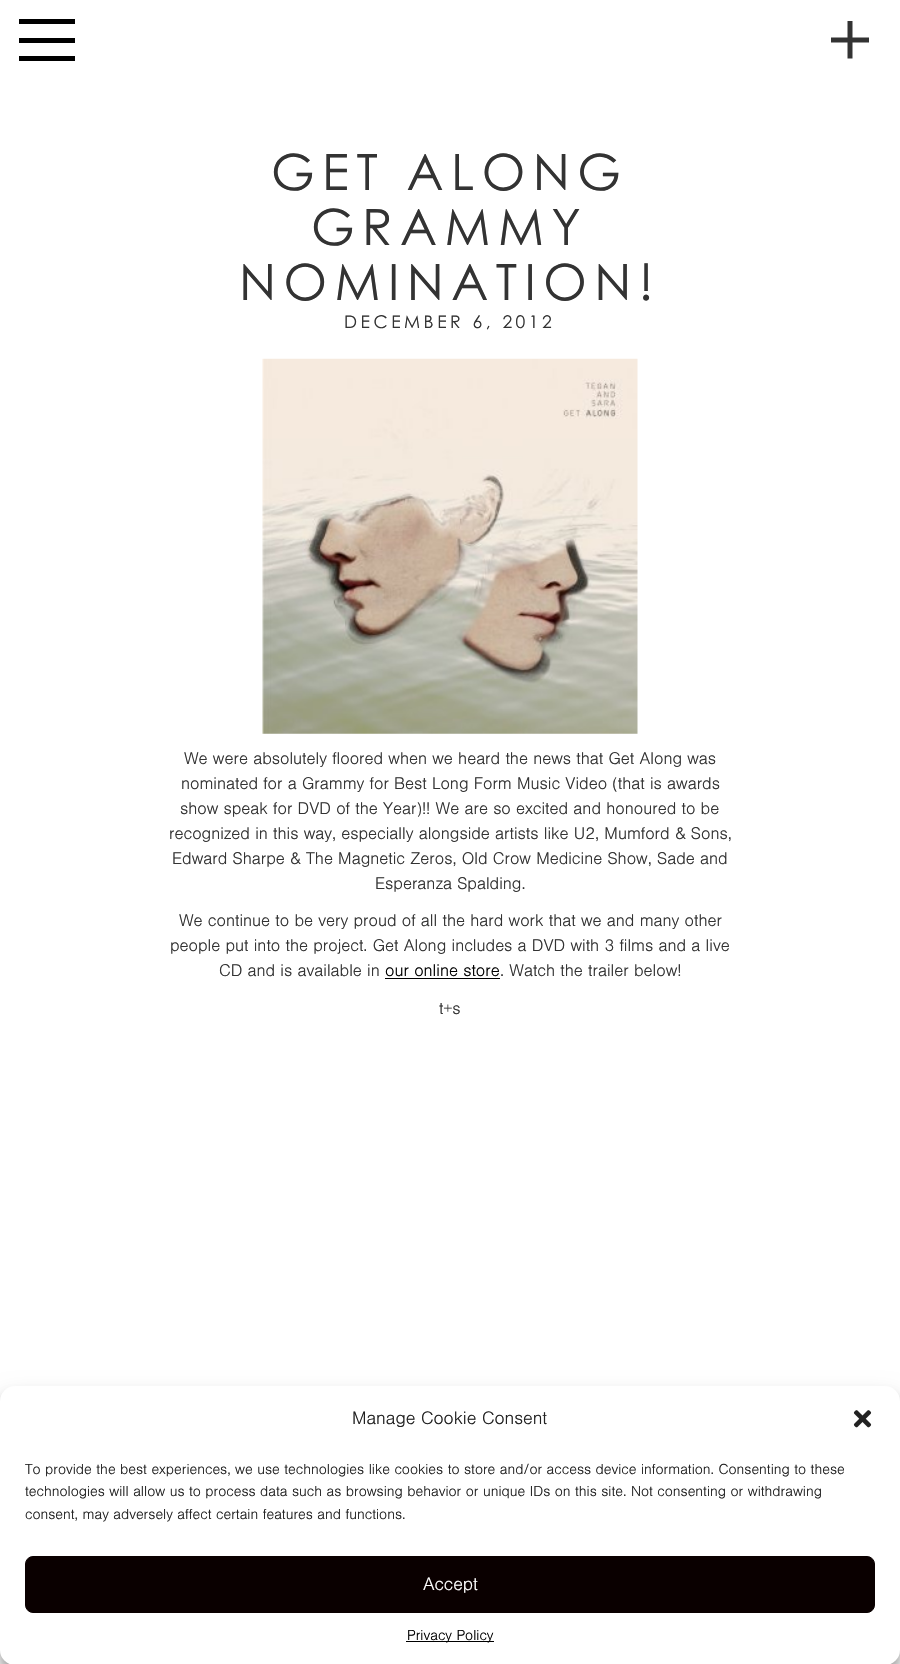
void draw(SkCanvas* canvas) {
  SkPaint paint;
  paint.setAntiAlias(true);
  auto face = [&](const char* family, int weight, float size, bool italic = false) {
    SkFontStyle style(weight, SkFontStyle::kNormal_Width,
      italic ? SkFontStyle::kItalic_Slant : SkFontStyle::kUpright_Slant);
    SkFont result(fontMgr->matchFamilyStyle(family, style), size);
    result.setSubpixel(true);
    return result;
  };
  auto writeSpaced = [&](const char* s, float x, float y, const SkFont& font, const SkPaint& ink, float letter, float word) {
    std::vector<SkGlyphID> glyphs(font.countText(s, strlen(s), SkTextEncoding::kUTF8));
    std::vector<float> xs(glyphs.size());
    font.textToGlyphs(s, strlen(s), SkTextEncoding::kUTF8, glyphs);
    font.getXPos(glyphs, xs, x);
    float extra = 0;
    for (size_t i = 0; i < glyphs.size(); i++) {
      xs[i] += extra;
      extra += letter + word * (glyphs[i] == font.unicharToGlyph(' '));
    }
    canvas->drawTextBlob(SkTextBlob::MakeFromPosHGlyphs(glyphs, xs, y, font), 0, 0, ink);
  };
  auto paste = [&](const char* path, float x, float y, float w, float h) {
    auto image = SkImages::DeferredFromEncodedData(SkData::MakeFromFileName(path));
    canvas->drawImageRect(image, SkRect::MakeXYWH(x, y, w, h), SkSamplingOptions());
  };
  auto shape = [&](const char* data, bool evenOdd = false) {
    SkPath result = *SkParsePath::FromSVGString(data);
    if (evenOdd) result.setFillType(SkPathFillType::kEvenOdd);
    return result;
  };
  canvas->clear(0xffffffff);
  {
    const struct { float x, y, w, h; SkColor color; } items[] = {
      {19, 19, 56, 5, 0xff000000},
      {19, 38, 56, 5, 0xff000000},
      {19, 56, 56, 5, 0xff000000},
    };
    for (auto [x, y, w, h, color] : items) {
      paint.setColor(color);
      canvas->drawRect(SkRect::MakeXYWH(x, y, w, h), paint);
    }
  }
  paint.setColor(0xff333333);
  canvas->drawPath(shape("M847.5 21V37.5H831V42.5H847.5V58.5H852.5V42.5H869V37.5H852.5V21Z"), paint);
  paste("img/1.png", 262, 358, 376, 376);
  paint.setColor(0xff000000);
  canvas->drawRect(SkRect::MakeXYWH(385, 978, 115, 1), paint);
  paint.setColor(0x3b000000);
  paint.setMaskFilter(SkMaskFilter::MakeBlur(kNormal_SkBlurStyle, 4));
  canvas->drawRoundRect(SkRect::MakeXYWH(0, 1394, 900, 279), 15, 15, paint);
  paint.setMaskFilter(nullptr);
  paint.setColor(0x30000000);
  paint.setMaskFilter(SkMaskFilter::MakeBlur(kNormal_SkBlurStyle, 12.5f));
  canvas->drawRoundRect(SkRect::MakeXYWH(0, 1399, 900, 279), 15, 15, paint);
  paint.setMaskFilter(nullptr);
  paint.setColor(0xffffffff);
  canvas->drawRoundRect(SkRect::MakeXYWH(0, 1386, 900, 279), 15, 15, paint);
  paste("img/2.png", 853, 1410, 19, 18);
  paint.setColor(0xff0a0000);
  canvas->drawRoundRect(SkRect::MakeXYWH(25.5f, 1556.5f, 849, 56), 7.5f, 7.5f, paint);
  paint.setStroke(true);
  paint.setStrokeWidth(1);
  canvas->drawRoundRect(SkRect::MakeXYWH(25.5f, 1556.5f, 849, 56), 7.5f, 7.5f, paint);
  paint.setStroke(false);
  paint.setColor(0xff000000);
  canvas->drawRect(SkRect::MakeXYWH(406, 1641, 88, 1), paint);
  auto f0 = face("Century Gothic", 400, 50);
  paint.setColor(0xff333333);
  {
    const struct { const char* s; float x, y; } items[] = {
      {"GET ALONG", 271, 190},
      {"GRAMMY", 311, 245},
      {"NOMINATION!", 239, 300},
    };
    for (auto [s, x, y] : items) {
      writeSpaced(s, x, y, f0, paint, 7.5f, 0);
    }
  }
  auto f1 = face("Century Gothic", 400, 17.5f);
  writeSpaced("DECEMBER 6, 2012", 344, 328, f1, paint, 3.5f, 0);
  auto f2 = face("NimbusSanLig", 400, 17.5f);
  {
    const struct { const char* s; float x, y; } items[] = {
      {"We were absolutely floored when we heard the news that Get Along was", 184, 764},
      {"nominated for a Grammy for Best Long Form Music Video (that is awards", 181, 789},
      {"show speak for DVD of the Year)!! We are so excited and honoured to be", 180, 814},
      {"recognized in this way, especially alongside artists like U2, Mumford & Sons,", 169, 839},
      {"Edward Sharpe & The Magnetic Zeros, Old Crow Medicine Show, Sade and", 172, 864},
      {"Esperanza Spalding.", 375, 889},
      {"We continue to be very proud of all the hard work that we and many other", 179, 926},
      {"people put into the project. Get Along includes a DVD with 3 films and a live", 170, 951},
      {"CD and is available in", 219, 976},
    };
    for (auto [s, x, y] : items) {
      canvas->drawString(s, x, y, f2, paint);
    }
  }
  paint.setColor(0xff000000);
  canvas->drawString("our online store", 385, 976, f2, paint);
  paint.setColor(0xff333333);
  canvas->drawString(". Watch the trailer below!", 500, 976, f2, paint);
  canvas->drawString("t+s", 439, 1014, f2, paint);
  auto f3 = face("NimbusSanLig", 400, 18.75f);
  paint.setColor(0xff222222);
  canvas->drawString("Manage Cookie Consent", 352, 1424, f3, paint);
  auto f4 = face("NimbusSanLig", 400, 15);
  {
    const struct { const char* s; float x, y; } items[] = {
      {"To provide the best experiences, we use technologies like cookies to store and/or access device information. Consenting to these", 25, 1474},
      {"technologies will allow us to process data such as browsing behavior or unique IDs on this site. Not consenting or withdrawing", 25, 1496},
      {"consent, may adversely affect certain features and functions.", 25, 1519},
    };
    for (auto [s, x, y] : items) {
      canvas->drawString(s, x, y, f4, paint);
    }
  }
  paint.setColor(0xffffffff);
  canvas->drawString("Accept", 423, 1590, f3, paint);
  paint.setColor(0xff000000);
  canvas->drawString("Privacy Policy", 407, 1640, f4, paint);
}
